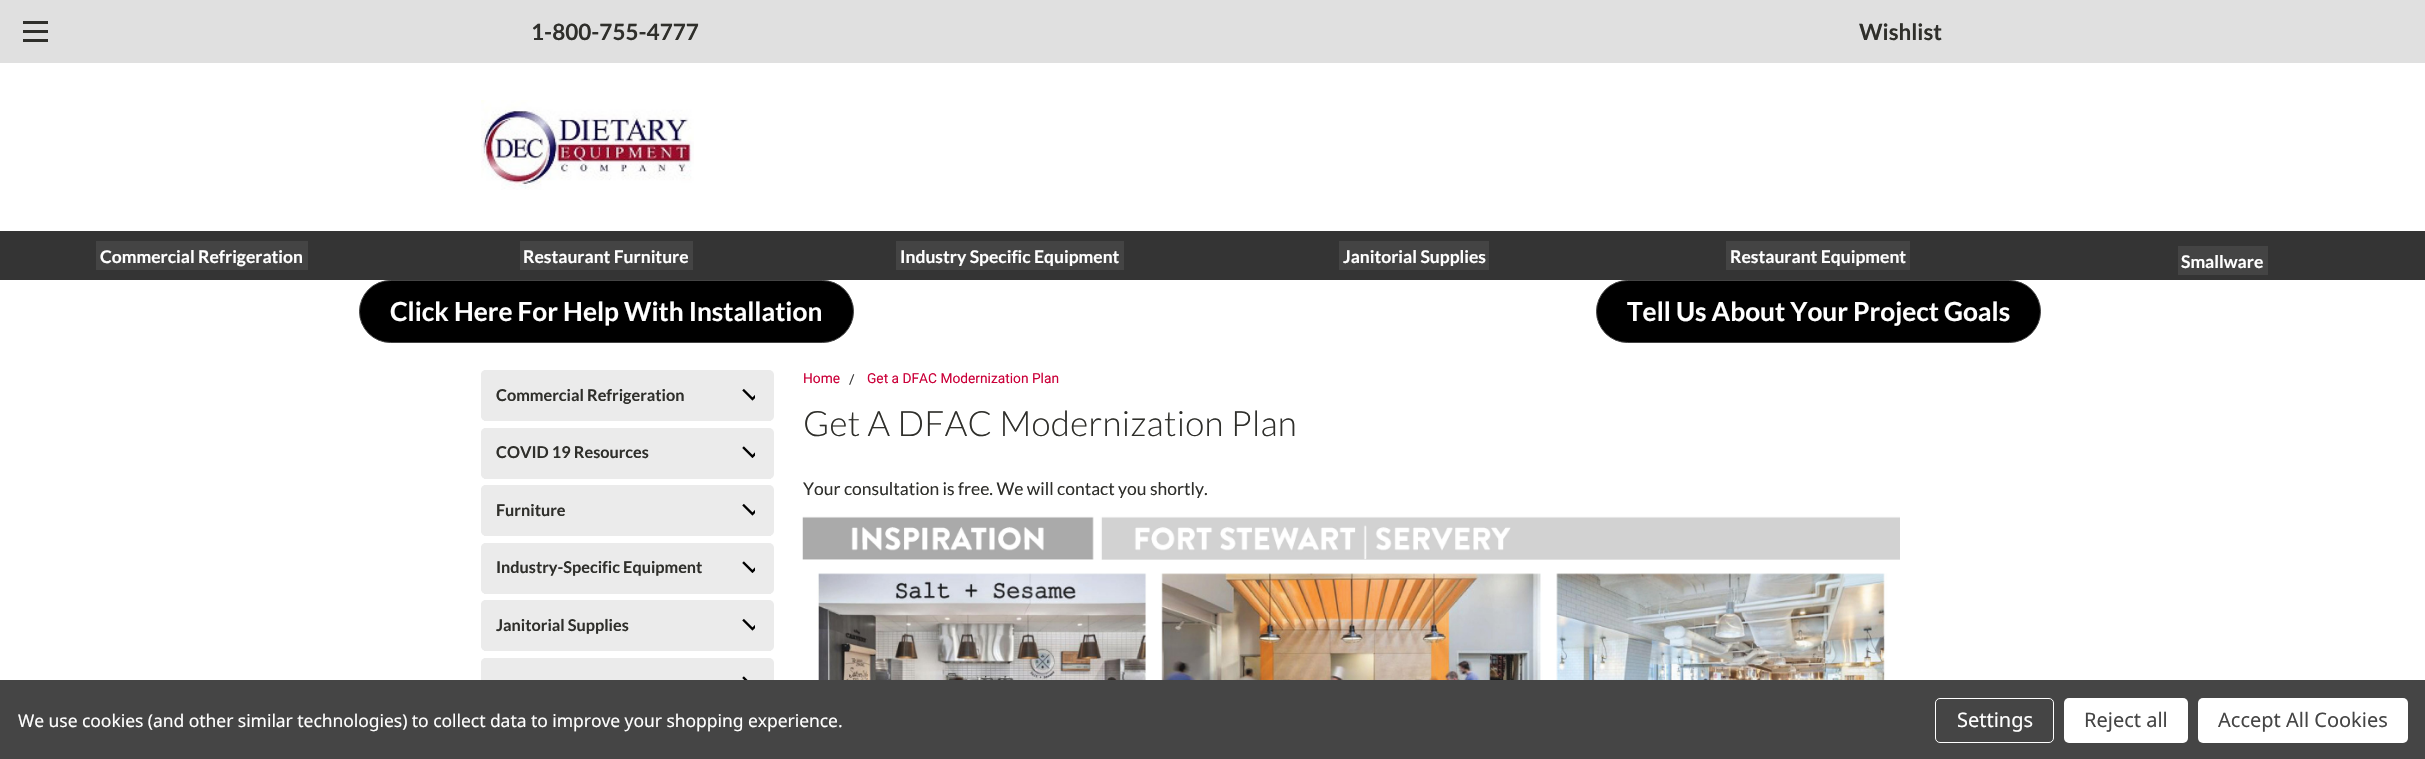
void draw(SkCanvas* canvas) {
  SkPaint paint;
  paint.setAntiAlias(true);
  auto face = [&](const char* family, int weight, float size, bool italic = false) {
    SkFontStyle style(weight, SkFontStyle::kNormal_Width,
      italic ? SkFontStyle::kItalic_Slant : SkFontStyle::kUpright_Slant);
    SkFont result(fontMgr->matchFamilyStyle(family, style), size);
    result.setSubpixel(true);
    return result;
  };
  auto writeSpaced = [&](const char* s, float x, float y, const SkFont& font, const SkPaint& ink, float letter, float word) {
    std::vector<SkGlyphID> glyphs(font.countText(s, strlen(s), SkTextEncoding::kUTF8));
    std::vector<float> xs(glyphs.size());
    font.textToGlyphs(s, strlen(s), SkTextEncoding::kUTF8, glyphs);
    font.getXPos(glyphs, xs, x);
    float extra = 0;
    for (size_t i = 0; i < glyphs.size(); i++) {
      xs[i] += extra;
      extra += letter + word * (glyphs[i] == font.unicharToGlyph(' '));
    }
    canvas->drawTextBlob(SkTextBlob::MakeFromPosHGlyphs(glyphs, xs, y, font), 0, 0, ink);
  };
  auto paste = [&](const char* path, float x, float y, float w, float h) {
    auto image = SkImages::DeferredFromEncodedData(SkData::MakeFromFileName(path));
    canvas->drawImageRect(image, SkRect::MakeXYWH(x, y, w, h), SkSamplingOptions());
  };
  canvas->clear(0xffffffff);
  {
    const struct { float x, y, w, h; SkColor color; } items[] = {
      {0, 0, 2425, 63, 0xffe0e0e0},
      {23, 30, 25, 3, 0xff2f2f2b},
      {23, 21, 25, 3, 0xff2f2f2b},
      {23, 39, 25, 3, 0xff2f2f2b},
    };
    for (auto [x, y, w, h, color] : items) {
      paint.setColor(color);
      canvas->drawRect(SkRect::MakeXYWH(x, y, w, h), paint);
    }
  }
  paste("img/1.png", 481, 100, 213, 90);
  {
    const struct { float x, y, w, h; SkColor color; } items[] = {
      {0, 231, 2425, 49, 0xff343434},
      {96, 241, 212, 29, 0xff444444},
      {520, 241, 173, 29, 0xff444444},
      {896, 241, 228, 29, 0xff444444},
      {1339, 241, 150, 29, 0xff444444},
      {1726, 241, 184, 29, 0xff444444},
      {2178, 246, 90, 29, 0xff444444},
    };
    for (auto [x, y, w, h, color] : items) {
      paint.setColor(color);
      canvas->drawRect(SkRect::MakeXYWH(x, y, w, h), paint);
    }
  }
  paint.setColor(0xff000000);
  canvas->drawRoundRect(SkRect::MakeXYWH(359.5f, 280.5f, 494, 62), 31, 31, paint);
  paint.setStroke(true);
  paint.setStrokeWidth(1);
  paint.setColor(0xff444444);
  canvas->drawRoundRect(SkRect::MakeXYWH(359.5f, 280.5f, 494, 62), 31, 31, paint);
  paint.setStroke(false);
  paint.setColor(0xff000000);
  canvas->drawRoundRect(SkRect::MakeXYWH(1596.5f, 280.5f, 444, 62), 31, 31, paint);
  paint.setStroke(true);
  paint.setColor(0xff444444);
  canvas->drawRoundRect(SkRect::MakeXYWH(1596.5f, 280.5f, 444, 62), 31, 31, paint);
  paint.setStroke(false);
  paint.setColor(0xffebebeb);
  canvas->drawRoundRect(SkRect::MakeXYWH(481, 370, 293, 51), 5, 5, paint);
  canvas->drawRect(SkRect::MakeXYWH(484, 420, 287, 1), paint);
  canvas->drawRoundRect(SkRect::MakeXYWH(481, 370, 249, 50), 5, 5, paint);
  paste("img/2.png", 742, 388, 13, 13);
  canvas->drawRoundRect(SkRect::MakeXYWH(481, 428, 293, 51), 5, 5, paint);
  canvas->drawRect(SkRect::MakeXYWH(484, 478, 287, 1), paint);
  canvas->drawRoundRect(SkRect::MakeXYWH(481, 428, 249, 50), 5, 5, paint);
  paste("img/3.png", 742, 446, 13, 12);
  canvas->drawRoundRect(SkRect::MakeXYWH(481, 485, 293, 51), 5, 5, paint);
  canvas->drawRect(SkRect::MakeXYWH(484, 535, 287, 1), paint);
  canvas->drawRoundRect(SkRect::MakeXYWH(481, 485, 249, 50), 5, 5, paint);
  paste("img/2.png", 742, 503, 13, 13);
  canvas->drawRoundRect(SkRect::MakeXYWH(481, 543, 293, 51), 5, 5, paint);
  canvas->drawRect(SkRect::MakeXYWH(484, 593, 287, 1), paint);
  canvas->drawRoundRect(SkRect::MakeXYWH(481, 543, 249, 50), 5, 5, paint);
  paste("img/3.png", 742, 561, 13, 12);
  canvas->drawRoundRect(SkRect::MakeXYWH(481, 600, 293, 51), 5, 5, paint);
  canvas->drawRect(SkRect::MakeXYWH(484, 650, 287, 1), paint);
  canvas->drawRoundRect(SkRect::MakeXYWH(481, 600, 249, 50), 5, 5, paint);
  paste("img/2.png", 742, 618, 13, 13);
  canvas->drawRoundRect(SkRect::MakeXYWH(481, 658, 293, 51), 5, 5, paint);
  canvas->drawRoundRect(SkRect::MakeXYWH(481, 658, 249, 50), 5, 5, paint);
  paste("img/4.png", 742, 676, 6, 4);
  paste("img/5.png", 802, 516, 1098, 164);
  paint.setColor(0xff454545);
  canvas->drawRect(SkRect::MakeXYWH(0, 680, 2425, 79), paint);
  paint.setStroke(true);
  paint.setColor(0xffffffff);
  canvas->drawRoundRect(SkRect::MakeXYWH(1935.5f, 698.5f, 118, 44), 4.5f, 4.5f, paint);
  paint.setStroke(false);
  canvas->drawRoundRect(SkRect::MakeXYWH(2064, 698, 124, 45), 5, 5, paint);
  canvas->drawRoundRect(SkRect::MakeXYWH(2198, 698, 210, 45), 5, 5, paint);
  auto f0 = face("Lato", 700, 22.5f);
  paint.setColor(0xff2f2f2b);
  canvas->drawString("1-800-755-4777", 531, 40, f0, paint);
  canvas->drawString("Wishlist", 1859, 40, f0, paint);
  auto f1 = face("Lato", 700, 17.5f);
  paint.setColor(0xffffffff);
  {
    const struct { const char* s; float x, y; } items[] = {
      {"Commercial Refrigeration", 100, 263},
      {"Restaurant Furniture", 523, 263},
      {"Industry Specific Equipment", 900, 263},
      {"Janitorial Supplies", 1343, 263},
      {"Restaurant Equipment", 1730, 263},
      {"Smallware", 2181, 268},
    };
    for (auto [s, x, y] : items) {
      canvas->drawString(s, x, y, f1, paint);
    }
  }
  auto f2 = face("Lato", 700, 26.25f);
  canvas->drawString("Click Here For Help With Installation", 390, 321, f2, paint);
  canvas->drawString("Tell Us About Your Project Goals", 1627, 321, f2, paint);
  auto f3 = face("Lato", 700, 16.25f);
  paint.setColor(0xff2f2f2b);
  {
    const struct { const char* s; float x, y; } items[] = {
      {"Commercial Refrigeration", 496, 401},
      {"COVID 19 Resources", 496, 458},
      {"Furniture", 496, 516},
      {"Industry-Specific Equipment", 496, 573},
      {"Janitorial Supplies", 496, 631},
    };
    for (auto [s, x, y] : items) {
      canvas->drawString(s, x, y, f3, paint);
    }
  }
  auto f4 = face("Roboto", 400, 13.75f);
  paint.setColor(0xffcb0039);
  canvas->drawString("Home", 803, 383, f4, paint);
  paint.setColor(0xff393939);
  canvas->drawString("/", 849, 384, f4, paint);
  paint.setColor(0xffcb0039);
  canvas->drawString("Get a DFAC Modernization Plan", 867, 383, f4, paint);
  auto f5 = face("Lato", 300, 35);
  paint.setColor(0xff2f2f2b);
  writeSpaced("Get A DFAC Modernization Plan", 803, 436, f5, paint, 0.3f, 0);
  auto f6 = face("Lato", 400, 17.5f);
  canvas->drawString("Your consultation is free. We will contact you shortly.", 803, 495, f6, paint);
  auto f7 = face("Noto Sans", 400, 17.5f);
  paint.setColor(0xffffffff);
  writeSpaced("We use cookies (and other similar technologies) to collect data to improve your shopping experience.", 18, 727, f7, paint, -0.05f, 0);
  auto f8 = face("Noto Sans", 400, 20);
  canvas->drawString("Settings", 1957, 727, f8, paint);
  paint.setColor(0xff454545);
  canvas->drawString("Reject all", 2084, 727, f8, paint);
  canvas->drawString("Accept All Cookies", 2218, 727, f8, paint);
}
